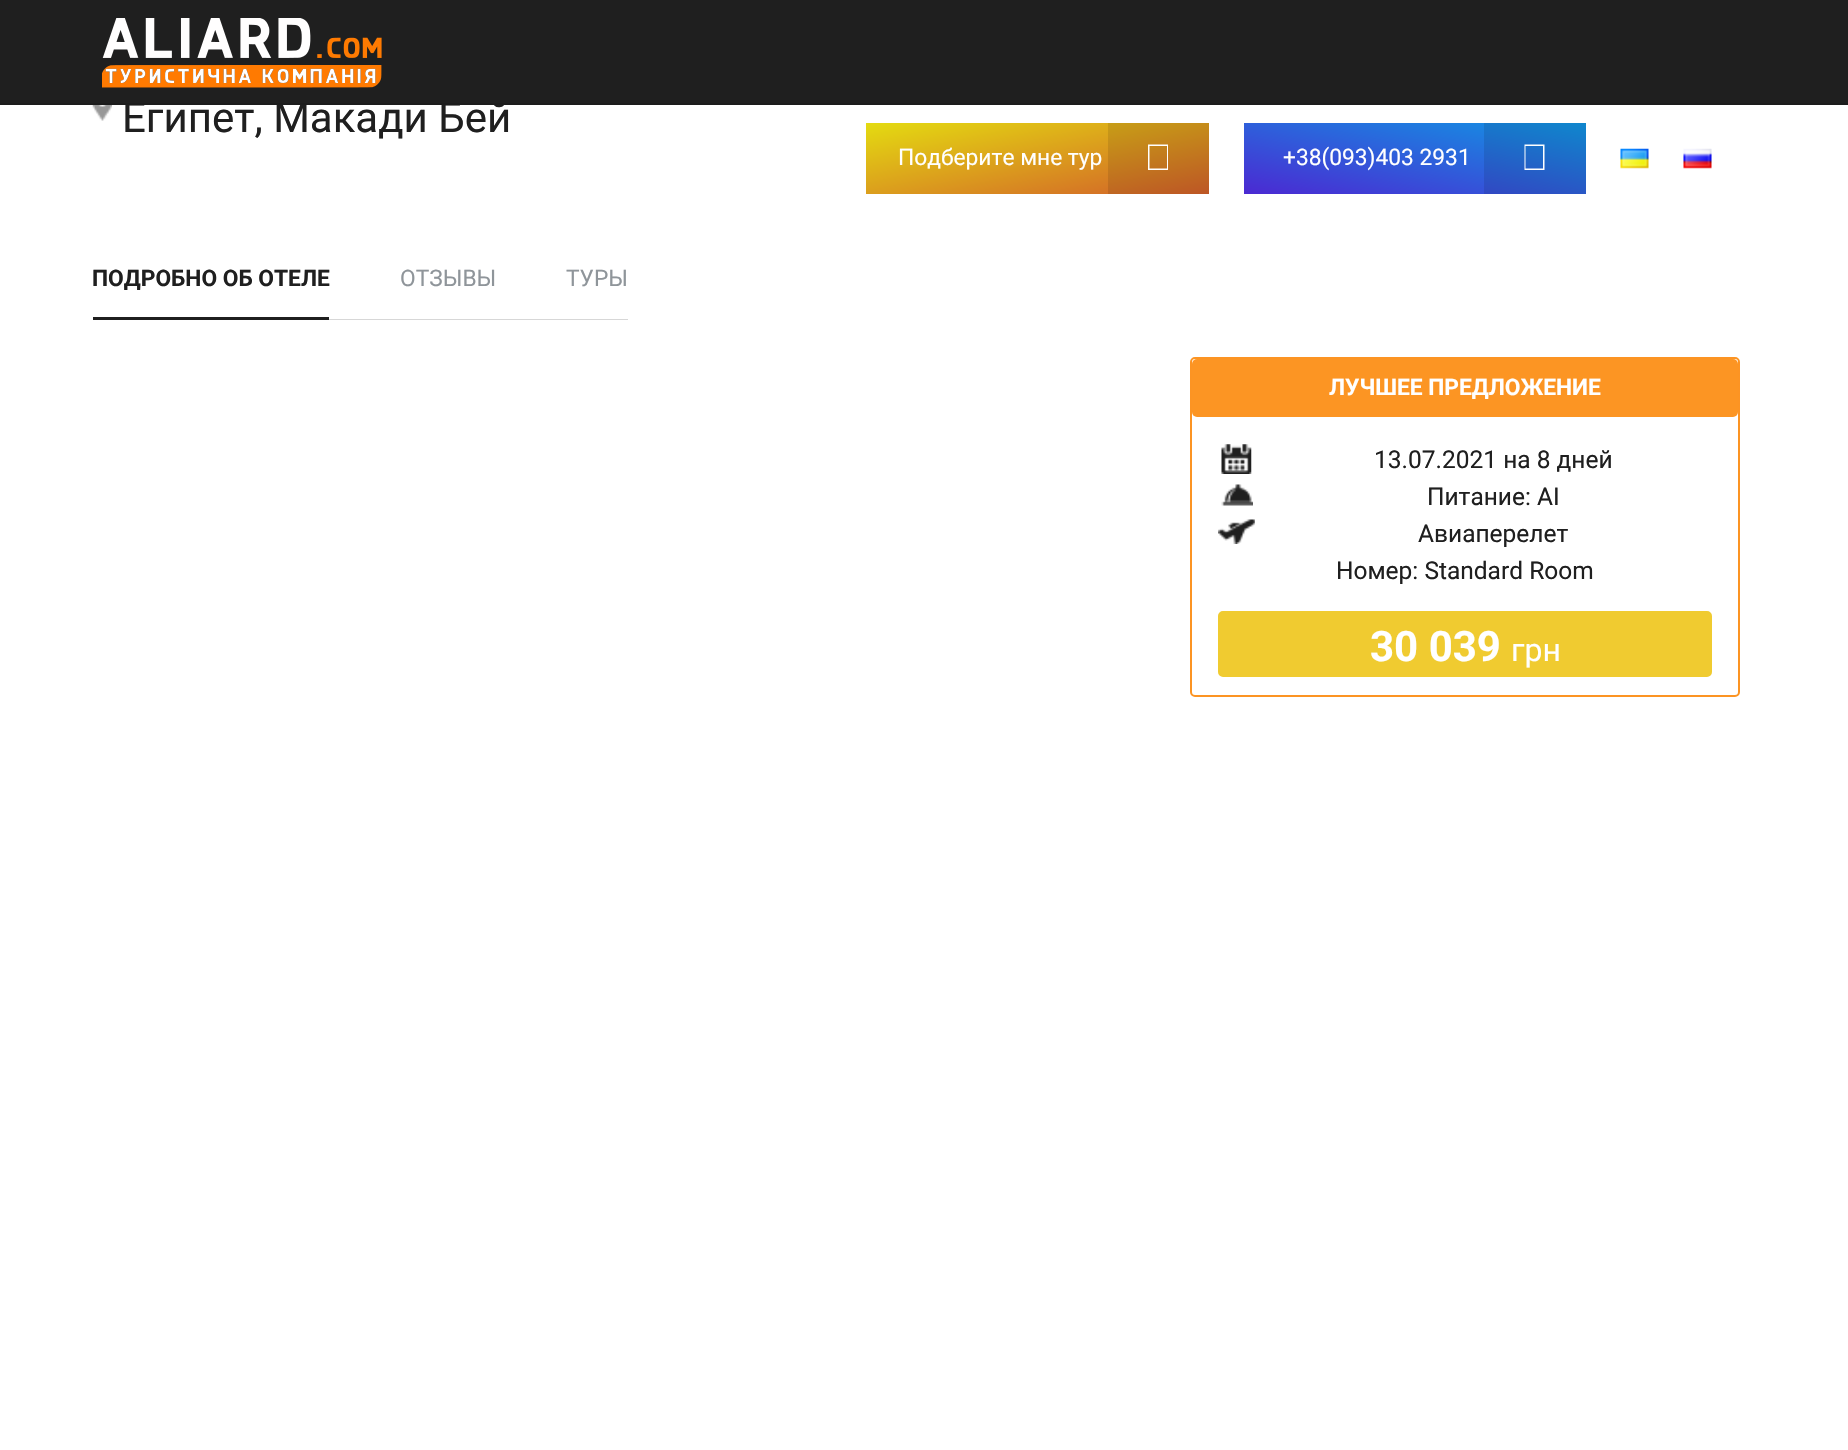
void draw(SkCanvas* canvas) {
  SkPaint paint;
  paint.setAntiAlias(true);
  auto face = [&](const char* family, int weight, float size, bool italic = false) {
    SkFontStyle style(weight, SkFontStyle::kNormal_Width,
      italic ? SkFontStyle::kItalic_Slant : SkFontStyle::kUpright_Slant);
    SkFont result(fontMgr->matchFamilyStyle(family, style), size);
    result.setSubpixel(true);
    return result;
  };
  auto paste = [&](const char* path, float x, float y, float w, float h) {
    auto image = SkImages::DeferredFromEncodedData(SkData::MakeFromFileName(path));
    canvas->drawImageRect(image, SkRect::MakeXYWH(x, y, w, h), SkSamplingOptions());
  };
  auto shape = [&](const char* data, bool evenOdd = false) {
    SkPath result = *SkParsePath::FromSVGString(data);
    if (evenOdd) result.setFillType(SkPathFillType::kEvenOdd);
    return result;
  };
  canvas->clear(0xffffffff);
  paste("img/1.png", 92, 105, 20, 16);
  paint.setColor(0xffd7d7d7);
  canvas->drawRect(SkRect::MakeXYWH(329, 319, 299, 1), paint);
  paint.setColor(0xff1f1f1f);
  canvas->drawRect(SkRect::MakeXYWH(93, 317, 236, 3), paint);
  paint.setStroke(true);
  paint.setStrokeWidth(2);
  paint.setColor(0xfffc9423);
  canvas->drawRoundRect(SkRect::MakeXYWH(1191, 358, 548, 338), 4, 4, paint);
  paint.setStroke(false);
  paint.setColor(0xfffc9523);
  canvas->drawRoundRect(SkRect::MakeXYWH(1192, 359, 546, 58), 5, 5, paint);
  paste("img/2.png", 1221, 444, 31, 30);
  paste("img/3.png", 1221, 484, 32, 22);
  paste("img/4.png", 1218, 519, 37, 25);
  paint.setColor(0xfff0cb30);
  canvas->drawRoundRect(SkRect::MakeXYWH(1220, 613, 490, 62), 3, 3, paint);
  paint.setStroke(true);
  paint.setStrokeWidth(4);
  canvas->drawRoundRect(SkRect::MakeXYWH(1220, 613, 490, 62), 3, 3, paint);
  paint.setStroke(false);
  paint.setColor(0xff1f1f1f);
  canvas->drawRect(SkRect::MakeXYWH(0, 0, 1848, 103), paint);
  paste("img/5.png", 102, 18, 280, 70);
  {
    const SkColor colors[] = {0xffd26029, 0xffe4db11};
    const float stops[] = {0, 1};
    const SkPoint ends[] = {{1052, 227}, {1023, 90}};
    paint.setShader(SkGradientShader::MakeLinear(ends, colors, stops, 2, SkTileMode::kClamp));
    paint.setAlpha(255);
  }
  canvas->drawRect(SkRect::MakeXYWH(866, 123, 242, 71), paint);
  {
    const SkColor colors[] = {0xffbd5625, 0xffcdc50f};
    const float stops[] = {0, 1};
    const SkPoint ends[] = {{1052, 227}, {1023, 90}};
    paint.setShader(SkGradientShader::MakeLinear(ends, colors, stops, 2, SkTileMode::kClamp));
    paint.setAlpha(255);
  }
  canvas->drawRect(SkRect::MakeXYWH(1108, 123, 101, 71), paint);
  paint.setShader(nullptr);
  paint.setColor(0xffffffff);
  canvas->drawPath(shape("M1148 144.5H1168V170H1148ZM1149.5 146V168.5H1167V146Z"), paint);
  {
    const SkColor colors[] = {0xff4b29d2, 0xff1196e4};
    const float stops[] = {0, 1};
    const SkPoint ends[] = {{1400, 227}, {1429, 90}};
    paint.setShader(SkGradientShader::MakeLinear(ends, colors, stops, 2, SkTileMode::kClamp));
    paint.setAlpha(255);
  }
  canvas->drawRect(SkRect::MakeXYWH(1244, 123, 240, 71), paint);
  {
    const SkColor colors[] = {0xff4425bd, 0xff0f87cd};
    const float stops[] = {0, 1};
    const SkPoint ends[] = {{1400, 227}, {1429, 90}};
    paint.setShader(SkGradientShader::MakeLinear(ends, colors, stops, 2, SkTileMode::kClamp));
    paint.setAlpha(255);
  }
  canvas->drawRect(SkRect::MakeXYWH(1484, 123, 102, 71), paint);
  paint.setShader(nullptr);
  paint.setColor(0xffffffff);
  canvas->drawPath(shape("M1524.5 144.5H1544.5V170H1524.5ZM1525.5 146V168.5H1543V146Z"), paint);
  paste("img/6.png", 1620, 148, 29, 21);
  paste("img/7.png", 1683, 148, 29, 21);
  auto f0 = face("Roboto", 400, 42);
  paint.setColor(0xff1f1f1f);
  canvas->drawString("Египет, Макади Бей", 122, 132, f0, paint);
  auto f1 = face("Roboto", 700, 22.75f);
  canvas->drawString("ПОДРОБНО ОБ ОТЕЛЕ", 92, 286, f1, paint);
  auto f2 = face("Roboto", 400, 22.75f);
  paint.setColor(0xff8f959a);
  canvas->drawString("ОТЗЫВЫ", 400, 286, f2, paint);
  canvas->drawString("ТУРЫ", 566, 286, f2, paint);
  paint.setColor(0xffffffff);
  canvas->drawString("ЛУЧШЕЕ ПРЕДЛОЖЕНИЕ", 1329, 395, f1, paint);
  auto f3 = face("Roboto", 400, 24.5f);
  paint.setColor(0xff1f1f1f);
  {
    const struct { const char* s; float x, y; } items[] = {
      {"13.07.2021 на 8 дней", 1374, 468},
      {"Питание: AI", 1427, 505},
      {"Авиаперелет", 1418, 542},
      {"Номер: Standard Room", 1336, 579},
    };
    for (auto [s, x, y] : items) {
      canvas->drawString(s, x, y, f3, paint);
    }
  }
  auto f4 = face("Roboto", 700, 42);
  paint.setColor(0xffffffff);
  canvas->drawString("30 039", 1370, 661, f4, paint);
  auto f5 = face("Roboto", 400, 32);
  canvas->drawString("грн", 1511, 661, f5, paint);
  paint.setColor(0xff1c1c1c);
  canvas->drawRect(SkRect::MakeXYWH(0, 103, 1848, 2), paint);
  paint.setColor(0xffffffff);
  canvas->drawString("Подберите мне тур", 898, 165, f2, paint);
  canvas->drawString("+38(093)403 2931", 1283, 165, f2, paint);
}
